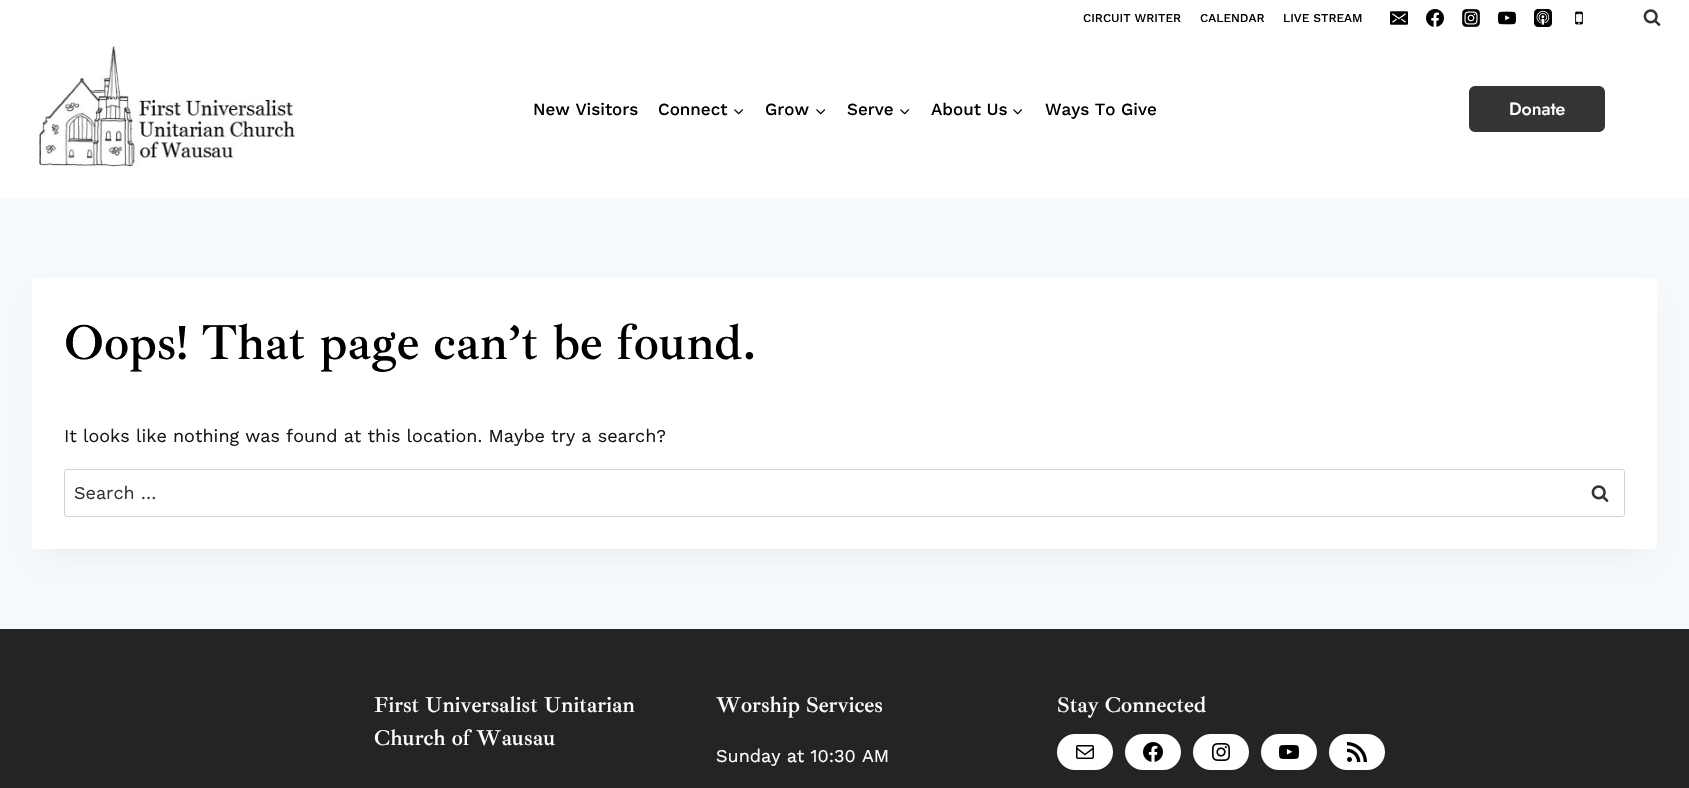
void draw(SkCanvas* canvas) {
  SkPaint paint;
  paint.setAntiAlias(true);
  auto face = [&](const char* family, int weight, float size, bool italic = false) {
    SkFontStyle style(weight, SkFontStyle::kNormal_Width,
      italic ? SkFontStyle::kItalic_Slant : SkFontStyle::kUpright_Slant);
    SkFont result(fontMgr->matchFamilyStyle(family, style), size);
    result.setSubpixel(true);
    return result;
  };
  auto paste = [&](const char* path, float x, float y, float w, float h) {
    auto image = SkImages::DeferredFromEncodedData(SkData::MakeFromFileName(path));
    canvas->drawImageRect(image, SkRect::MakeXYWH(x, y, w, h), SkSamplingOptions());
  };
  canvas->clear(0xfff7fafc);
  paint.setColor(0xffffffff);
  canvas->drawRect(SkRect::MakeXYWH(0, 0, 1689, 198), paint);
  paste("img/1.png", 1390, 11, 18, 14);
  paste("img/2.png", 1426, 9, 18, 18);
  paste("img/3.png", 1462, 9, 18, 18);
  paste("img/4.png", 1498, 11, 18, 14);
  paste("img/5.png", 1534, 9, 18, 18);
  paste("img/6.png", 1575, 11, 8, 14);
  paste("img/7.png", 1643, 9, 18, 17);
  paste("img/8.png", 39, 46, 257, 123);
  paste("img/9.png", 734, 109, 10, 6);
  paste("img/9.png", 816, 109, 10, 6);
  paste("img/9.png", 900, 109, 10, 6);
  paste("img/9.png", 1013, 109, 10, 6);
  paint.setColor(0xff343434);
  canvas->drawRoundRect(SkRect::MakeXYWH(1468, 85, 138, 48), 7, 7, paint);
  paint.setStroke(true);
  paint.setStrokeWidth(2);
  paint.setColor(0xffffffff);
  canvas->drawRoundRect(SkRect::MakeXYWH(1468, 85, 138, 48), 7, 7, paint);
  paint.setStroke(false);
  paint.setColor(0x0d000000);
  paint.setMaskFilter(SkMaskFilter::MakeBlur(kNormal_SkBlurStyle, 12.5f));
  canvas->drawRect(SkRect::MakeXYWH(42, 303, 1605, 251), paint);
  paint.setMaskFilter(nullptr);
  paint.setColor(0xffffffff);
  canvas->drawRoundRect(SkRect::MakeXYWH(32, 278, 1625, 271), 4, 4, paint);
  paint.setStroke(true);
  paint.setStrokeWidth(1);
  paint.setColor(0xffcbd5e0);
  canvas->drawRoundRect(SkRect::MakeXYWH(64.5f, 469.5f, 1560, 47), 2.5f, 2.5f, paint);
  paste("img/10.png", 1591, 485, 18, 17);
  paint.setStroke(false);
  paint.setColor(0xff242424);
  canvas->drawRect(SkRect::MakeXYWH(0, 629, 1689, 159), paint);
  paint.setColor(0xffffffff);
  canvas->drawRoundRect(SkRect::MakeXYWH(1057, 734, 56, 36), 18, 18, paint);
  paste("img/11.png", 1076, 745, 18, 14);
  canvas->drawRoundRect(SkRect::MakeXYWH(1125, 734, 56, 36), 18, 18, paint);
  paste("img/12.png", 1143, 742, 20, 20);
  canvas->drawRoundRect(SkRect::MakeXYWH(1193, 734, 56, 36), 18, 18, paint);
  paste("img/13.png", 1212, 743, 18, 18);
  canvas->drawRoundRect(SkRect::MakeXYWH(1261, 734, 56, 36), 18, 18, paint);
  paste("img/14.png", 1279, 745, 20, 14);
  canvas->drawRoundRect(SkRect::MakeXYWH(1329, 734, 56, 36), 18, 18, paint);
  paste("img/15.png", 1347, 742, 20, 20);
  auto f0 = face("Work Sans", 500, 12);
  paint.setColor(0xff000000);
  {
    const struct { const char* s; float x, y; } items[] = {
      {"CIRCUIT WRITER", 1083, 22},
      {"CALENDAR", 1200, 22},
      {"LIVE STREAM", 1283, 22},
    };
    for (auto [s, x, y] : items) {
      canvas->drawString(s, x, y, f0, paint);
    }
  }
  auto f1 = face("Work Sans", 500, 17);
  {
    const struct { const char* s; float x, y; } items[] = {
      {"New Visitors", 533, 115},
      {"Connect", 658, 115},
      {"Grow", 765, 115},
      {"Serve", 847, 115},
      {"About Us", 931, 115},
      {"Ways To Give", 1045, 115},
    };
    for (auto [s, x, y] : items) {
      canvas->drawString(s, x, y, f1, paint);
    }
  }
  auto f2 = face("Jost", 500, 18);
  paint.setColor(0xffffffff);
  canvas->drawString("Donate", 1509, 115, f2, paint);
  auto f3 = face("Ibarra Real Nova", 600, 50);
  paint.setColor(0xff000000);
  canvas->drawString("Oops! That page can’t be found.", 64, 359, f3, paint);
  auto f4 = face("Work Sans", 400, 18);
  paint.setColor(0xff151515);
  canvas->drawString("It looks like nothing was found at this location. Maybe try a search?", 64, 442, f4, paint);
  paint.setColor(0xff343434);
  canvas->drawString("Search …", 74, 499, f4, paint);
  auto f5 = face("Ibarra Real Nova", 600, 22);
  paint.setColor(0xffffffff);
  {
    const struct { const char* s; float x, y; } items[] = {
      {"First Universalist Unitarian", 374, 712},
      {"Church of Wausau", 374, 745},
      {"Worship Services", 716, 712},
    };
    for (auto [s, x, y] : items) {
      canvas->drawString(s, x, y, f5, paint);
    }
  }
  canvas->drawString("Sunday at 10:30 AM", 716, 762, f4, paint);
  canvas->drawString("Stay Connected", 1057, 712, f5, paint);
}
